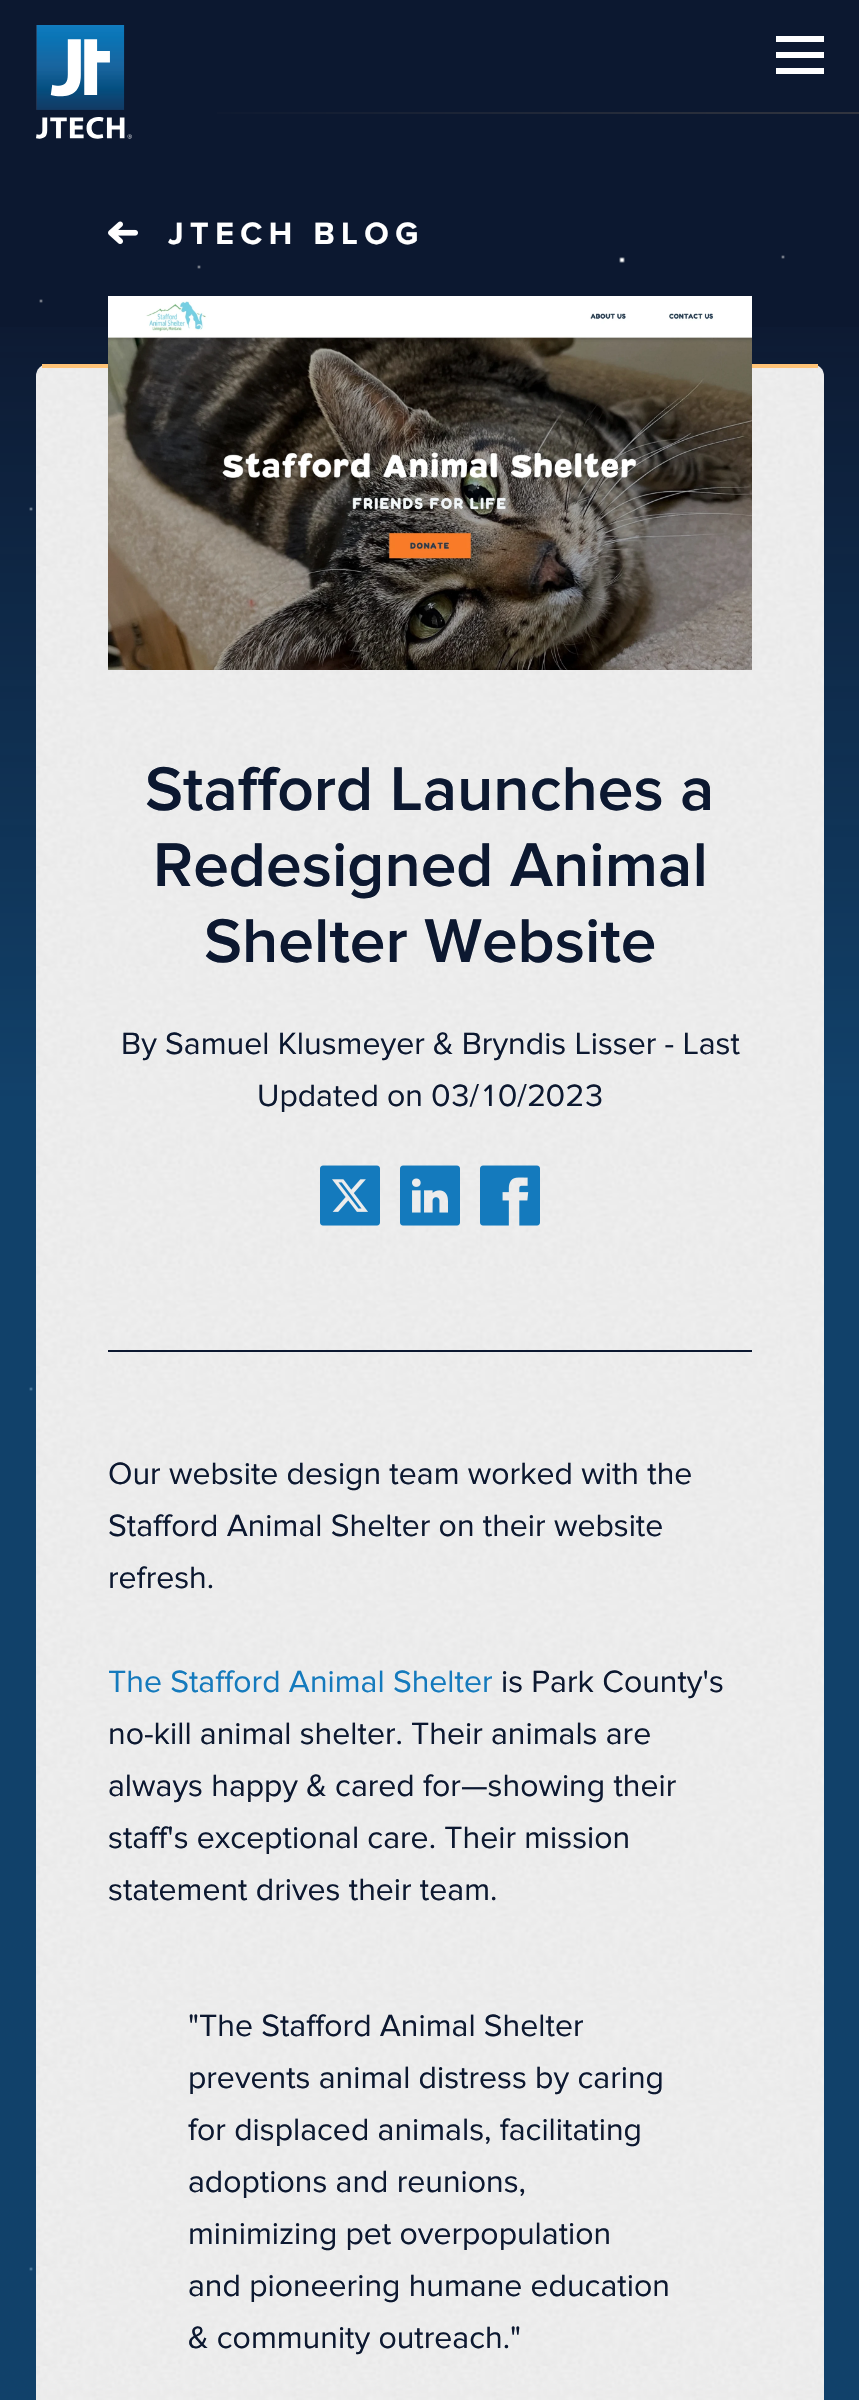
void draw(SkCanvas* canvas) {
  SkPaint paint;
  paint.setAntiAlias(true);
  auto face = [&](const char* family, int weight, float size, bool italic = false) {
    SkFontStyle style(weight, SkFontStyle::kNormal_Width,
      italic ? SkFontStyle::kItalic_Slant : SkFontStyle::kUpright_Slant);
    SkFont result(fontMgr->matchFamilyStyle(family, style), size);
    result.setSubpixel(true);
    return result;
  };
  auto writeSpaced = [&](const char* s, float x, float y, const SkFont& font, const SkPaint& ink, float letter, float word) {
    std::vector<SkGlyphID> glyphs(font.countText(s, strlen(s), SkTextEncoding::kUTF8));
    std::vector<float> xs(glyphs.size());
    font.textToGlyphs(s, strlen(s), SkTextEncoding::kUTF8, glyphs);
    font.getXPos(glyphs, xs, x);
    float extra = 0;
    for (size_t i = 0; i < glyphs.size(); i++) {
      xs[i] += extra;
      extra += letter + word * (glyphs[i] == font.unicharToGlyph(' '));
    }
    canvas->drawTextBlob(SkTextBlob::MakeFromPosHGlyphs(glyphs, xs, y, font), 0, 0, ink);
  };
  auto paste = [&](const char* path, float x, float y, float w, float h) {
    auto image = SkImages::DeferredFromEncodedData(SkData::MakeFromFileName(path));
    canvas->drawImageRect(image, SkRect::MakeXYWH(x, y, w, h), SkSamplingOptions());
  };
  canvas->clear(0xff0c1830);
  paste("img/1.png", 36, 25, 96, 114);
  {
    const struct { float x, y, w, h; SkColor color; } items[] = {
      {776, 36, 48, 6, 0xffffffff},
      {776, 52, 48, 6, 0xffffffff},
      {776, 68, 48, 6, 0xffffffff},
    };
    for (auto [x, y, w, h, color] : items) {
      paint.setColor(color);
      canvas->drawRect(SkRect::MakeXYWH(x, y, w, h), paint);
    }
  }
  {
    const SkColor colors[] = {0xff0c1830, 0xff32353f};
    const float stops[] = {0.2f, 1};
    const SkPoint ends[] = {{0, 113}, {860, 113}};
    paint.setShader(SkGradientShader::MakeLinear(ends, colors, stops, 2, SkTileMode::kClamp));
    paint.setAlpha(255);
  }
  canvas->drawRect(SkRect::MakeXYWH(217, 112, 642, 2), paint);
  paste("img/2.png", 108, 221, 30, 23);
  paste("img/8.png", 29, 255, 756, 2016);
  {
    const SkColor colors[] = {0x001669a3, 0x801669a3, 0x801669a3, 0x001669a3};
    const float stops[] = {0, 0.11f, 0.5f, 1};
    const SkPoint ends[] = {{430, 292}, {430, 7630}};
    paint.setShader(SkGradientShader::MakeLinear(ends, colors, stops, 4, SkTileMode::kClamp));
    paint.setAlpha(255);
  }
  canvas->drawRect(SkRect::MakeXYWH(0, 327, 859, 2073), paint);
  paste("img/3.png", 36, 365, 788, 2035);
  paint.setShader(nullptr);
  paint.setColor(0xfffec377);
  canvas->drawRect(SkRect::MakeXYWH(42, 364, 776, 4), paint);
  paste("img/4.png", 108, 296, 644, 374);
  paste("img/5.png", 320, 1165, 60, 61);
  paste("img/6.png", 400, 1165, 60, 61);
  paste("img/7.png", 480, 1165, 60, 61);
  paint.setColor(0xff0c1830);
  canvas->drawRect(SkRect::MakeXYWH(108, 1350, 644, 2), paint);
  paste("img/9.png", 619, 257, 6, 6);
  auto f0 = face("Proxima Nova", 400, 32);
  paint.setColor(0xffffffff);
  writeSpaced("JTECH BLOG", 168, 244, f0, paint, 6.5f, 0);
  auto f1 = face("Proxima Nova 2", 400, 64);
  paint.setColor(0xff0c1830);
  {
    const struct { const char* s; float x, y; } items[] = {
      {"Stafford Launches a", 145, 810},
      {"Redesigned Animal", 153, 886},
      {"Shelter Website", 204, 962},
    };
    for (auto [s, x, y] : items) {
      canvas->drawString(s, x, y, f1, paint);
    }
  }
  auto f2 = face("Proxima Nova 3", 400, 32);
  {
    const struct { const char* s; float x, y; } items[] = {
      {"By Samuel Klusmeyer & Bryndis Lisser - Last", 121, 1054},
      {"Updated on 03/10/2023", 257, 1106},
      {"Our website design team worked with the", 108, 1484},
      {"Stafford Animal Shelter on their website", 108, 1536},
      {"refresh.", 108, 1588},
    };
    for (auto [s, x, y] : items) {
      canvas->drawString(s, x, y, f2, paint);
    }
  }
  paint.setColor(0xff147abd);
  canvas->drawString("The Stafford Animal Shelter", 108, 1692, f2, paint);
  paint.setColor(0xff0c1830);
  {
    const struct { const char* s; float x, y; } items[] = {
      {"is Park County's", 501, 1692},
      {"no-kill animal shelter. Their animals are", 108, 1744},
      {"always happy & cared for—showing their", 108, 1796},
      {"staff's exceptional care. Their mission", 108, 1848},
      {"statement drives their team.", 108, 1900},
      {"\"The Stafford Animal Shelter", 188, 2036},
      {"prevents animal distress by caring", 188, 2088},
      {"for displaced animals, facilitating", 188, 2140},
      {"adoptions and reunions,", 188, 2192},
      {"minimizing pet overpopulation", 188, 2244},
      {"and pioneering humane education", 188, 2296},
      {"& community outreach.\"", 188, 2348},
    };
    for (auto [s, x, y] : items) {
      canvas->drawString(s, x, y, f2, paint);
    }
  }
}
